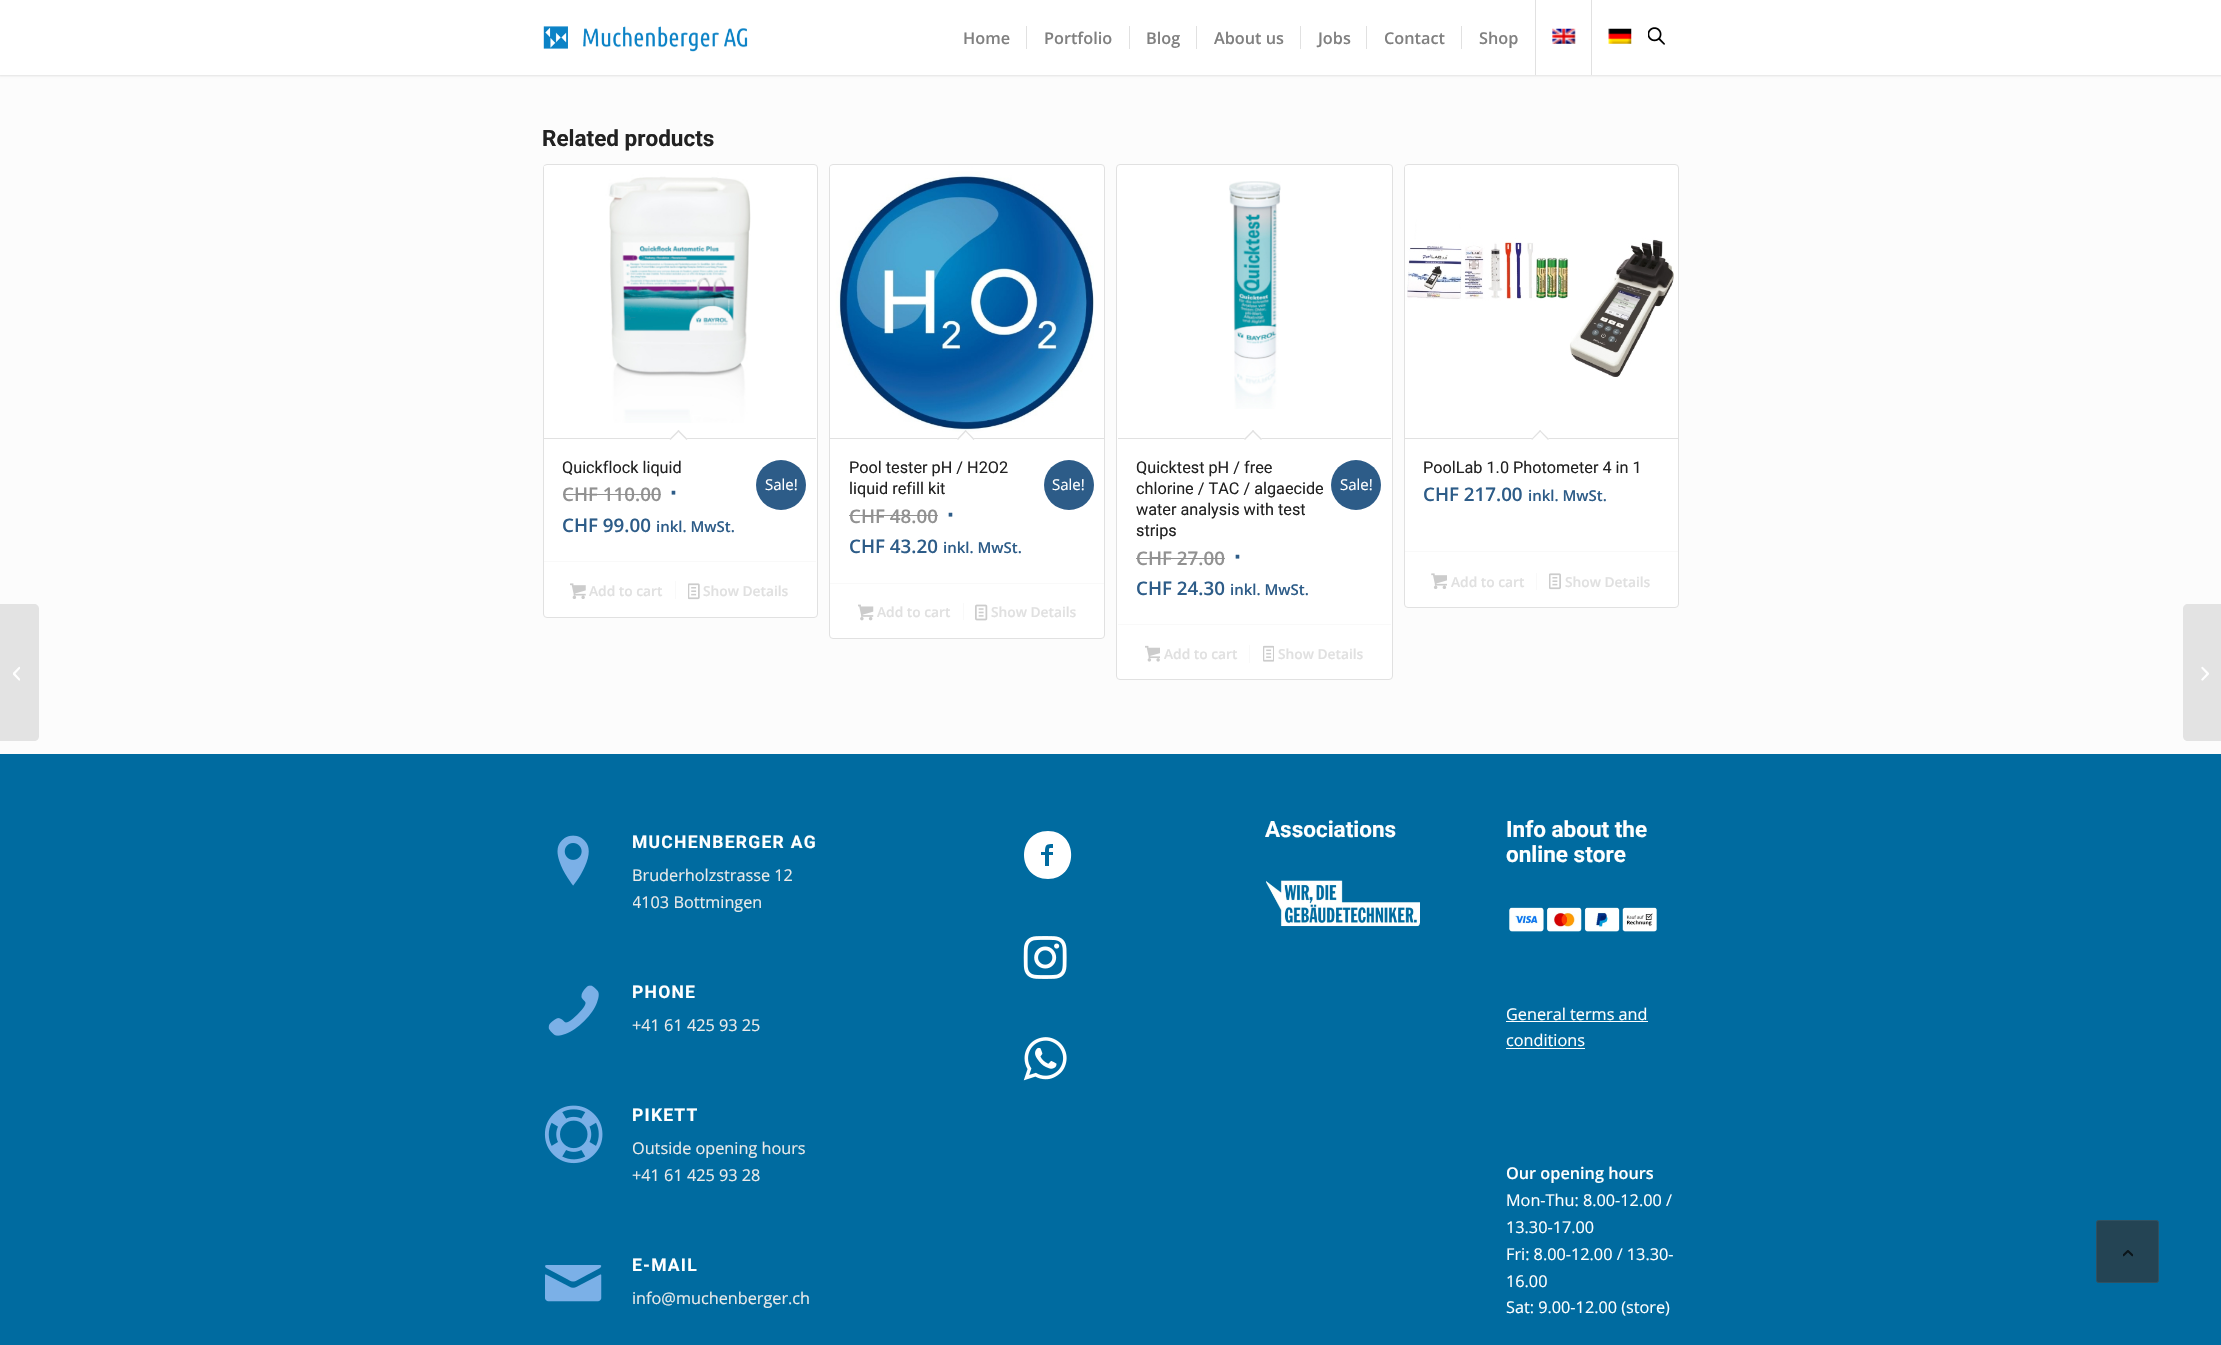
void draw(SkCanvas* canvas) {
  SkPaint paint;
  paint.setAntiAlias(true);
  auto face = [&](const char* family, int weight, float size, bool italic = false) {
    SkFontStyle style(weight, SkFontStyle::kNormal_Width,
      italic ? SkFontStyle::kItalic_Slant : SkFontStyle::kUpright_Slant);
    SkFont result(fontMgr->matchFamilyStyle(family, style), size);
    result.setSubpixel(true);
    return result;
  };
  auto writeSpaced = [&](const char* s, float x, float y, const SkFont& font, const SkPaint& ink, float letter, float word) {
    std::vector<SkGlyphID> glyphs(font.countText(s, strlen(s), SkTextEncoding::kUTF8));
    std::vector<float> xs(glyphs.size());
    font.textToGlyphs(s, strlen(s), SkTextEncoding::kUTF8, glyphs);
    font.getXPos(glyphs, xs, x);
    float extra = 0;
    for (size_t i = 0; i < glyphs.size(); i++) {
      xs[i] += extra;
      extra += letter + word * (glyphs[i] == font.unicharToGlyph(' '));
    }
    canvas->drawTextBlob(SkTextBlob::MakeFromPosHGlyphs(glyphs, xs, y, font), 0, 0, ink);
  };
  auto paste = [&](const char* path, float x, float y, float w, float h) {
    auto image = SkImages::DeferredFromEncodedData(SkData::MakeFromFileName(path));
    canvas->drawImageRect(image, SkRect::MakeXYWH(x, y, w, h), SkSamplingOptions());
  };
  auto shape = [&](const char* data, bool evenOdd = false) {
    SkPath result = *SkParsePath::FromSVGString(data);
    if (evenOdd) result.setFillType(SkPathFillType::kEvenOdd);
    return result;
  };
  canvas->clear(0xfffcfcfc);
  paint.setColor(0x1a000000);
  paint.setMaskFilter(SkMaskFilter::MakeBlur(kNormal_SkBlurStyle, 1));
  canvas->drawRect(SkRect::MakeXYWH(-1, -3, 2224, 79), paint);
  paint.setMaskFilter(nullptr);
  paint.setColor(0xffffffff);
  canvas->drawRect(SkRect::MakeXYWH(0, 0, 2221, 75), paint);
  paste("img/1.png", 543, 26, 205, 26);
  {
    const struct { float x, y, w, h; SkColor color; } items[] = {
      {1026, 26, 1, 23, 0xffe1e1e1},
      {1129, 26, 1, 23, 0xffe1e1e1},
      {1196, 26, 1, 23, 0xffe1e1e1},
      {1300, 26, 1, 23, 0xffe1e1e1},
      {1366, 26, 1, 23, 0xffe1e1e1},
      {1461, 26, 1, 23, 0xffe1e1e1},
      {1535, 0, 1, 75, 0xffe1e1e1},
    };
    for (auto [x, y, w, h, color] : items) {
      paint.setColor(color);
      canvas->drawRect(SkRect::MakeXYWH(x, y, w, h), paint);
    }
  }
  paste("img/2.png", 1552, 28, 24, 16);
  canvas->drawRect(SkRect::MakeXYWH(1591, 0, 1, 75), paint);
  paste("img/3.png", 1608, 28, 24, 16);
  paste("img/4.png", 1648, 27, 17, 18);
  paint.setColor(0xffe3e3e3);
  canvas->drawPath(shape("M0 604H34C37 604 39 606 39 609V736C39 739 37 741 34 741H0Z"), paint);
  paste("img/5.png", 13, 666, 7, 15);
  paint.setColor(0xffffffff);
  canvas->drawRoundRect(SkRect::MakeXYWH(543.5f, 164.5f, 274, 453), 3.5f, 3.5f, paint);
  paint.setStroke(true);
  paint.setStrokeWidth(1);
  paint.setColor(0xffe1e1e1);
  canvas->drawRoundRect(SkRect::MakeXYWH(543.5f, 164.5f, 274, 453), 3.5f, 3.5f, paint);
  paste("img/6.png", 544, 166, 207, 257);
  paint.setStroke(false);
  canvas->drawRect(SkRect::MakeXYWH(544, 438, 272, 1), paint);
  paint.setColor(0xffffffff);
  canvas->drawPath(shape("M678.5 430L687.5 439L678.5 448L669.5 439Z"), paint);
  paint.setColor(0xffe1e1e1);
  canvas->drawPath(shape("M678.5 430L687.5 439L686.5 440L677.5 431Z"), paint);
  canvas->drawPath(shape("M678.5 430L679.5 431L670.5 440L669.5 439Z"), paint);
  paint.setColor(0xff2d5c88);
  canvas->drawCircle(781, 485, 25, paint);
  paint.setColor(0xff919191);
  canvas->drawRect(SkRect::MakeXYWH(563, 494, 98, 1), paint);
  paint.setColor(0xfff9f9f9);
  canvas->drawRect(SkRect::MakeXYWH(544, 561, 272, 1), paint);
  paste("img/7.png", 570, 583, 16, 16);
  canvas->drawRect(SkRect::MakeXYWH(675, 581, 1, 18), paint);
  paste("img/8.png", 688, 583, 12, 17);
  paint.setColor(0xffffffff);
  canvas->drawRoundRect(SkRect::MakeXYWH(829.5f, 164.5f, 275, 474), 3.5f, 3.5f, paint);
  paint.setStroke(true);
  paint.setColor(0xffe1e1e1);
  canvas->drawRoundRect(SkRect::MakeXYWH(829.5f, 164.5f, 275, 474), 3.5f, 3.5f, paint);
  paste("img/9.png", 830, 166, 264, 266);
  paint.setStroke(false);
  canvas->drawRect(SkRect::MakeXYWH(830, 438, 274, 1), paint);
  paint.setColor(0xffffffff);
  canvas->drawPath(shape("M965.5 430L974.5 439L965.5 448L957 439Z"), paint);
  paint.setColor(0xffe1e1e1);
  canvas->drawPath(shape("M965.5 430L974.5 439L973.5 440L965 431Z"), paint);
  canvas->drawPath(shape("M965.5 430L966.5 431L958 440L957 439Z"), paint);
  paint.setColor(0xff2d5c88);
  canvas->drawCircle(1069, 485, 25, paint);
  paint.setColor(0xff919191);
  canvas->drawRect(SkRect::MakeXYWH(849, 515, 89, 1), paint);
  paint.setColor(0xfff9f9f9);
  canvas->drawRect(SkRect::MakeXYWH(830, 583, 274, 1), paint);
  paste("img/10.png", 858, 604, 16, 17);
  canvas->drawRect(SkRect::MakeXYWH(963, 603, 1, 17), paint);
  paste("img/11.png", 975, 604, 13, 17);
  paint.setColor(0xffffffff);
  canvas->drawRoundRect(SkRect::MakeXYWH(1116.5f, 164.5f, 276, 515), 3.5f, 3.5f, paint);
  paint.setStroke(true);
  paint.setColor(0xffe1e1e1);
  canvas->drawRoundRect(SkRect::MakeXYWH(1116.5f, 164.5f, 276, 515), 3.5f, 3.5f, paint);
  paste("img/12.png", 1229, 181, 52, 228);
  paint.setStroke(false);
  canvas->drawRect(SkRect::MakeXYWH(1118, 438, 273, 1), paint);
  paint.setColor(0xffffffff);
  canvas->drawPath(shape("M1253 430L1262 439L1253 448L1244 439Z"), paint);
  paint.setColor(0xffe1e1e1);
  canvas->drawPath(shape("M1253 430L1262 439L1261 440L1252 431Z"), paint);
  canvas->drawPath(shape("M1253 430L1254 431L1245 440L1244 439Z"), paint);
  paint.setColor(0xff2d5c88);
  canvas->drawCircle(1356, 485, 25, paint);
  paint.setColor(0xff919191);
  canvas->drawRect(SkRect::MakeXYWH(1136, 558, 89, 1), paint);
  paint.setColor(0xfff9f9f9);
  canvas->drawRect(SkRect::MakeXYWH(1118, 624, 273, 1), paint);
  paste("img/13.png", 1145, 645, 15, 17);
  canvas->drawRect(SkRect::MakeXYWH(1249, 645, 1, 18), paint);
  paste("img/14.png", 1263, 645, 11, 17);
  paint.setColor(0xffffffff);
  canvas->drawRoundRect(SkRect::MakeXYWH(1404.5f, 164.5f, 274, 443), 3.5f, 3.5f, paint);
  paint.setStroke(true);
  paint.setColor(0xffe1e1e1);
  canvas->drawRoundRect(SkRect::MakeXYWH(1404.5f, 164.5f, 274, 443), 3.5f, 3.5f, paint);
  paste("img/15.png", 1405, 166, 269, 211);
  paint.setStroke(false);
  canvas->drawRect(SkRect::MakeXYWH(1405, 438, 273, 1), paint);
  paint.setColor(0xffffffff);
  canvas->drawPath(shape("M1540 430L1549 439L1540 448L1531.5 439Z"), paint);
  paint.setColor(0xffe1e1e1);
  canvas->drawPath(shape("M1540 430L1549 439L1548 440L1539.5 431Z"), paint);
  canvas->drawPath(shape("M1540 430L1541 431L1532 440L1531.5 439Z"), paint);
  paint.setColor(0xfff9f9f9);
  canvas->drawRect(SkRect::MakeXYWH(1405, 551, 273, 1), paint);
  paste("img/16.png", 1431, 573, 16, 16);
  canvas->drawRect(SkRect::MakeXYWH(1536, 573, 1, 17), paint);
  paste("img/17.png", 1549, 573, 12, 17);
  paint.setColor(0xff006ba0);
  canvas->drawRect(SkRect::MakeXYWH(0, 754, 2221, 591), paint);
  paste("img/18.png", 1266, 880, 154, 47);
  paste("img/19.png", 1509, 907, 148, 25);
  paint.setColor(0xffffffff);
  canvas->drawRect(SkRect::MakeXYWH(1506, 1021, 142, 1), paint);
  canvas->drawRect(SkRect::MakeXYWH(1506, 1048, 79, 1), paint);
  paste("img/20.png", 557, 835, 32, 51);
  paste("img/21.png", 548, 985, 51, 51);
  paste("img/22.png", 544, 1105, 59, 59);
  paste("img/23.png", 545, 1265, 57, 37);
  canvas->drawPath(shape("M1048 831C1079 831 1079 879 1048 879C1016 879 1016 831 1048 831ZM1053 848V844C1047 844 1045 844 1045 852H1041V855H1045V866H1049V855H1053V852H1049C1049 847 1049 848 1053 848Z"), paint);
  paste("img/24.png", 1023, 936, 44, 43);
  paste("img/25.png", 1023, 1037, 44, 44);
  paint.setColor(0xffe3e3e3);
  canvas->drawPath(shape("M2188 604H2221V741H2188C2185 741 2183 739 2183 736V609C2183 606 2185 604 2188 604Z"), paint);
  paste("img/26.png", 2201, 666, 8, 15);
  paint.setColor(0xff244454);
  canvas->drawRoundRect(SkRect::MakeXYWH(2096.5f, 1220.5f, 62, 62), 2, 2, paint);
  paint.setStroke(true);
  paint.setColor(0xff305060);
  canvas->drawRoundRect(SkRect::MakeXYWH(2096.5f, 1220.5f, 62, 62), 2, 2, paint);
  paste("img/27.png", 2123, 1250, 10, 7);
  auto f0 = face("Open Sans", 600, 16.25f);
  paint.setStroke(false);
  paint.setColor(0xff808080);
  {
    const struct { const char* s; float x, y; } items[] = {
      {"Home", 963, 44},
      {"Portfolio", 1044, 44},
      {"Blog", 1146, 44},
      {"About us", 1214, 44},
      {"Jobs", 1318, 44},
      {"Contact", 1384, 44},
      {"Shop", 1479, 44},
    };
    for (auto [s, x, y] : items) {
      canvas->drawString(s, x, y, f0, paint);
    }
  }
  auto f1 = face("Roboto", 700, 22.5f);
  paint.setColor(0xff222222);
  canvas->drawString("Related products", 542, 146, f1, paint);
  auto f2 = face("Roboto", 400, 16.25f);
  canvas->drawString("Quickflock liquid", 562, 473, f2, paint);
  auto f3 = face("Open Sans", 400, 15);
  paint.setColor(0xffffffff);
  canvas->drawString("Sale!", 765, 490, f3, paint);
  auto f4 = face("Open Sans", 600, 18.75f);
  paint.setColor(0xff919191);
  canvas->drawString("CHF 110.00", 562, 501, f4, paint);
  auto f5 = face("Liberation Sans", 700, 25);
  paint.setColor(0xff2d5c88);
  canvas->drawString("∙", 670, 501, f5, paint);
  canvas->drawString("CHF 99.00", 562, 532, f4, paint);
  auto f6 = face("Open Sans", 600, 15);
  canvas->drawString("inkl. MwSt.", 656, 532, f6, paint);
  auto f7 = face("Open Sans", 600, 13.75f);
  paint.setColor(0xffe0e0e0);
  canvas->drawString("Add to cart", 589, 596, f7, paint);
  canvas->drawString("Show Details", 703, 596, f7, paint);
  paint.setColor(0xff222222);
  canvas->drawString("Pool tester pH / H2O2", 849, 473, f2, paint);
  canvas->drawString("liquid refill kit", 849, 494, f2, paint);
  paint.setColor(0xffffffff);
  canvas->drawString("Sale!", 1052, 490, f3, paint);
  paint.setColor(0xff919191);
  canvas->drawString("CHF 48.00", 849, 523, f4, paint);
  paint.setColor(0xff2d5c88);
  canvas->drawString("∙", 947, 523, f5, paint);
  canvas->drawString("CHF 43.20", 849, 553, f4, paint);
  canvas->drawString("inkl. MwSt.", 943, 553, f6, paint);
  paint.setColor(0xffe0e0e0);
  canvas->drawString("Add to cart", 877, 617, f7, paint);
  canvas->drawString("Show Details", 991, 617, f7, paint);
  paint.setColor(0xff222222);
  {
    const struct { const char* s; float x, y; } items[] = {
      {"Quicktest pH / free", 1136, 473},
      {"chlorine / TAC / algaecide", 1136, 494},
      {"water analysis with test", 1136, 515},
      {"strips", 1136, 536},
    };
    for (auto [s, x, y] : items) {
      canvas->drawString(s, x, y, f2, paint);
    }
  }
  paint.setColor(0xffffffff);
  canvas->drawString("Sale!", 1340, 490, f3, paint);
  paint.setColor(0xff919191);
  canvas->drawString("CHF 27.00", 1136, 565, f4, paint);
  paint.setColor(0xff2d5c88);
  canvas->drawString("∙", 1234, 565, f5, paint);
  canvas->drawString("CHF 24.30", 1136, 595, f4, paint);
  canvas->drawString("inkl. MwSt.", 1230, 595, f6, paint);
  paint.setColor(0xffe0e0e0);
  canvas->drawString("Add to cart", 1164, 659, f7, paint);
  canvas->drawString("Show Details", 1278, 659, f7, paint);
  paint.setColor(0xff222222);
  canvas->drawString("PoolLab 1.0 Photometer 4 in 1", 1423, 473, f2, paint);
  paint.setColor(0xff2d5c88);
  canvas->drawString("CHF 217.00", 1423, 501, f4, paint);
  canvas->drawString("inkl. MwSt.", 1528, 501, f6, paint);
  paint.setColor(0xffe0e0e0);
  canvas->drawString("Add to cart", 1451, 587, f7, paint);
  canvas->drawString("Show Details", 1565, 587, f7, paint);
  paint.setColor(0xffffffff);
  {
    const struct { const char* s; float x, y; } items[] = {
      {"Associations", 1265, 837},
      {"Info about the", 1506, 837},
      {"online store", 1506, 862},
    };
    for (auto [s, x, y] : items) {
      canvas->drawString(s, x, y, f1, paint);
    }
  }
  auto f8 = face("Open Sans", 400, 16.25f);
  canvas->drawString("General terms and", 1506, 1020, f8, paint);
  canvas->drawString("conditions", 1506, 1046, f8, paint);
  canvas->drawString("Our opening hours", 1506, 1179, f0, paint);
  {
    const struct { const char* s; float x, y; } items[] = {
      {"Mon-Thu: 8.00-12.00 /", 1506, 1206},
      {"13.30-17.00", 1506, 1233},
      {"Fri: 8.00-12.00 / 13.30-", 1506, 1260},
      {"16.00", 1506, 1287},
      {"Sat: 9.00-12.00 (store)", 1506, 1313},
    };
    for (auto [s, x, y] : items) {
      canvas->drawString(s, x, y, f8, paint);
    }
  }
  auto f9 = face("Roboto", 700, 17.5f);
  writeSpaced("MUCHENBERGER AG", 632, 848, f9, paint, 1.25f, 0);
  paint.setColor(0xffeaeaea);
  canvas->drawString("Bruderholzstrasse 12", 632, 881, f8, paint);
  canvas->save();
  canvas->clipRect(SkRect::MakeXYWH(633, 830, 323, 86));
  canvas->drawString("4103 Bottmingen", 632, 908, f8, paint);
  canvas->restore();
  paint.setColor(0xffffffff);
  writeSpaced("PHONE", 632, 998, f9, paint, 1.25f, 0);
  paint.setColor(0xffeaeaea);
  canvas->drawString("+41 61 425 93 25", 632, 1031, f8, paint);
  paint.setColor(0xffffffff);
  writeSpaced("PIKETT", 632, 1121, f9, paint, 1.25f, 0);
  paint.setColor(0xffeaeaea);
  canvas->drawString("Outside opening hours", 632, 1154, f8, paint);
  canvas->drawString("+41 61 425 93 28", 632, 1181, f8, paint);
  paint.setColor(0xffffffff);
  writeSpaced("E-MAIL", 632, 1271, f9, paint, 1.25f, 0);
  paint.setColor(0xffeaeaea);
  canvas->drawString("info@muchenberger.ch", 632, 1304, f8, paint);
}
